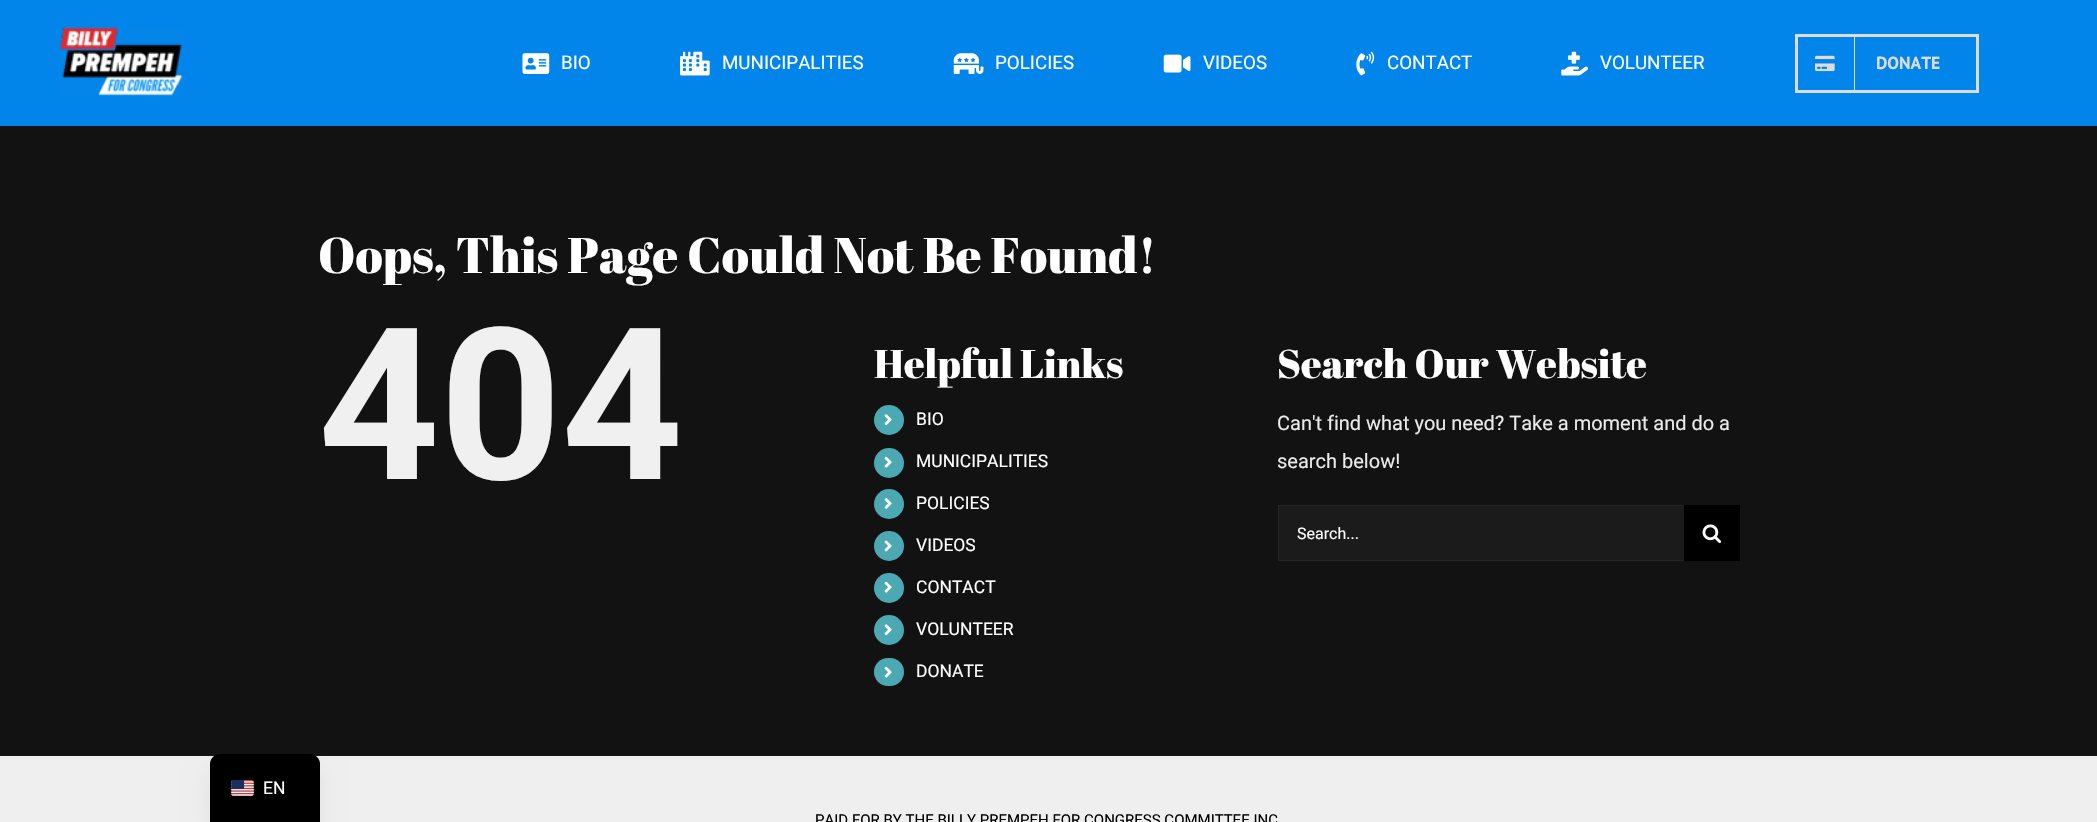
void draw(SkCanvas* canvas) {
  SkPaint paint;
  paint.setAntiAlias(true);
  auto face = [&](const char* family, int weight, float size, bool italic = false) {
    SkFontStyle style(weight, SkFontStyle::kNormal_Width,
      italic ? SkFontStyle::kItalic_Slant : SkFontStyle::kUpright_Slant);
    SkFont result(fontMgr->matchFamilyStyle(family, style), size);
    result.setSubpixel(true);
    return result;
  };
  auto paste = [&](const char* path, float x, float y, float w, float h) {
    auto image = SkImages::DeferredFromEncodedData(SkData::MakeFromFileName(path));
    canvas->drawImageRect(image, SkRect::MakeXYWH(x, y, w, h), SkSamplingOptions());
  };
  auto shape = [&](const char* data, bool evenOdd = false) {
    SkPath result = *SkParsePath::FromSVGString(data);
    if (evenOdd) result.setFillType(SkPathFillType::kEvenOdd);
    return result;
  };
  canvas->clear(0xff121213);
  paint.setColor(0xffefefef);
  canvas->drawRect(SkRect::MakeXYWH(0, 756, 2097, 66), paint);
  paint.setColor(0xff181819);
  canvas->drawRect(SkRect::MakeXYWH(0, 755, 2097, 1), paint);
  paint.setColor(0x0d000000);
  paint.setMaskFilter(SkMaskFilter::MakeBlur(kNormal_SkBlurStyle, 12.5f));
  canvas->drawRoundRect(SkRect::MakeXYWH(210, 766, 110, 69), 10, 10, paint);
  paint.setMaskFilter(nullptr);
  paint.setColor(0xff000000);
  canvas->drawPath(shape("M220 754H310C315.5 754 320 758.5 320 764V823H210V764C210 758.5 214.5 754 220 754Z"), paint);
  paste("img/1.png", 231, 780, 23, 16);
  paint.setColor(0xff0285ea);
  canvas->drawRect(SkRect::MakeXYWH(0, 0, 2097, 126), paint);
  paste("img/2.png", 59, 27, 124, 69);
  paste("img/3.png", 522, 53, 28, 21);
  paste("img/4.png", 680, 51, 30, 25);
  paste("img/5.png", 953, 53, 31, 21);
  paste("img/6.png", 1163, 54, 28, 19);
  paste("img/7.png", 1356, 51, 19, 25);
  paste("img/8.png", 1561, 51, 27, 25);
  paint.setStroke(true);
  paint.setStrokeWidth(3);
  paint.setColor(0xffdcdcdc);
  canvas->drawRect(SkRect::MakeXYWH(1796.5f, 35.5f, 181, 56), paint);
  paint.setStroke(false);
  canvas->drawRect(SkRect::MakeXYWH(1854, 36, 1, 54), paint);
  paste("img/9.png", 1815, 55, 20, 17);
  paint.setColor(0xff4ca9b4);
  canvas->drawCircle(889, 420, 15, paint);
  paste("img/10.png", 884, 414, 8, 12);
  canvas->drawCircle(889, 463, 15, paint);
  paste("img/11.png", 884, 456, 8, 12);
  canvas->drawCircle(889, 504, 15, paint);
  paste("img/12.png", 884, 498, 8, 11);
  canvas->drawCircle(889, 546, 15, paint);
  paste("img/13.png", 884, 540, 8, 12);
  canvas->drawCircle(889, 588, 15, paint);
  paste("img/11.png", 884, 581, 8, 12);
  canvas->drawCircle(889, 630, 15, paint);
  paste("img/10.png", 884, 624, 8, 12);
  canvas->drawRoundRect(SkRect::MakeXYWH(874, 658, 30, 28), 14, 14, paint);
  paste("img/11.png", 884, 666, 8, 12);
  {
    const struct { float x, y, w, h; SkColor color; } items[] = {
      {1279, 506, 405, 54, 0xff1b1b1c},
      {1278, 505, 406, 1, 0xff242528},
      {1278, 560, 406, 1, 0xff242528},
      {1278, 505, 1, 56, 0xff242528},
      {1684, 505, 56, 56, 0xff000000},
    };
    for (auto [x, y, w, h, color] : items) {
      paint.setColor(color);
      canvas->drawRect(SkRect::MakeXYWH(x, y, w, h), paint);
    }
  }
  paste("img/14.png", 1702, 524, 20, 19);
  auto f0 = face("Roboto", 400, 17.5f);
  paint.setColor(0xffffffff);
  canvas->drawString("EN", 263, 794, f0, paint);
  auto f1 = face("Roboto", 400, 18.75f);
  {
    const struct { const char* s; float x, y; } items[] = {
      {"BIO", 561, 69},
      {"MUNICIPALITIES", 722, 69},
      {"POLICIES", 995, 69},
      {"VIDEOS", 1203, 69},
      {"CONTACT", 1387, 69},
      {"VOLUNTEER", 1600, 69},
    };
    for (auto [s, x, y] : items) {
      canvas->drawString(s, x, y, f1, paint);
    }
  }
  auto f2 = face("PT Sans", 700, 17.5f);
  paint.setColor(0xffdcdcdc);
  canvas->drawString("DONATE", 1876, 69, f2, paint);
  auto f3 = face("Abril Fatface", 400, 50);
  paint.setColor(0xffffffff);
  canvas->drawString("Oops, This Page Could Not Be Found!", 318, 273, f3, paint);
  auto f4 = face("Roboto", 700, 212);
  paint.setColor(0xfff0f0f0);
  canvas->drawString("404", 318, 479, f4, paint);
  auto f5 = face("Abril Fatface", 400, 40);
  paint.setColor(0xffffffff);
  canvas->drawString("Helpful Links", 874, 378, f5, paint);
  {
    const struct { const char* s; float x, y; } items[] = {
      {"BIO", 916, 425},
      {"MUNICIPALITIES", 916, 467},
      {"POLICIES", 916, 509},
      {"VIDEOS", 916, 551},
      {"CONTACT", 916, 593},
      {"VOLUNTEER", 916, 635},
      {"DONATE", 916, 677},
    };
    for (auto [s, x, y] : items) {
      canvas->drawString(s, x, y, f0, paint);
    }
  }
  canvas->drawString("Search Our Website", 1277, 378, f5, paint);
  auto f6 = face("Roboto", 400, 20);
  paint.setColor(0xffeaeaea);
  canvas->drawString("Can't find what you need? Take a moment and do a", 1277, 430, f6, paint);
  canvas->drawString("search below!", 1277, 468, f6, paint);
  auto f7 = face("Roboto", 400, 16);
  paint.setColor(0xffffffff);
  canvas->drawString("Search...", 1297, 539, f7, paint);
  auto f8 = face("Roboto", 400, 15);
  paint.setColor(0xff000000);
  canvas->drawString("PAID FOR BY THE BILLY PREMPEH FOR CONGRESS COMMITTEE INC", 815, 825, f8, paint);
}
